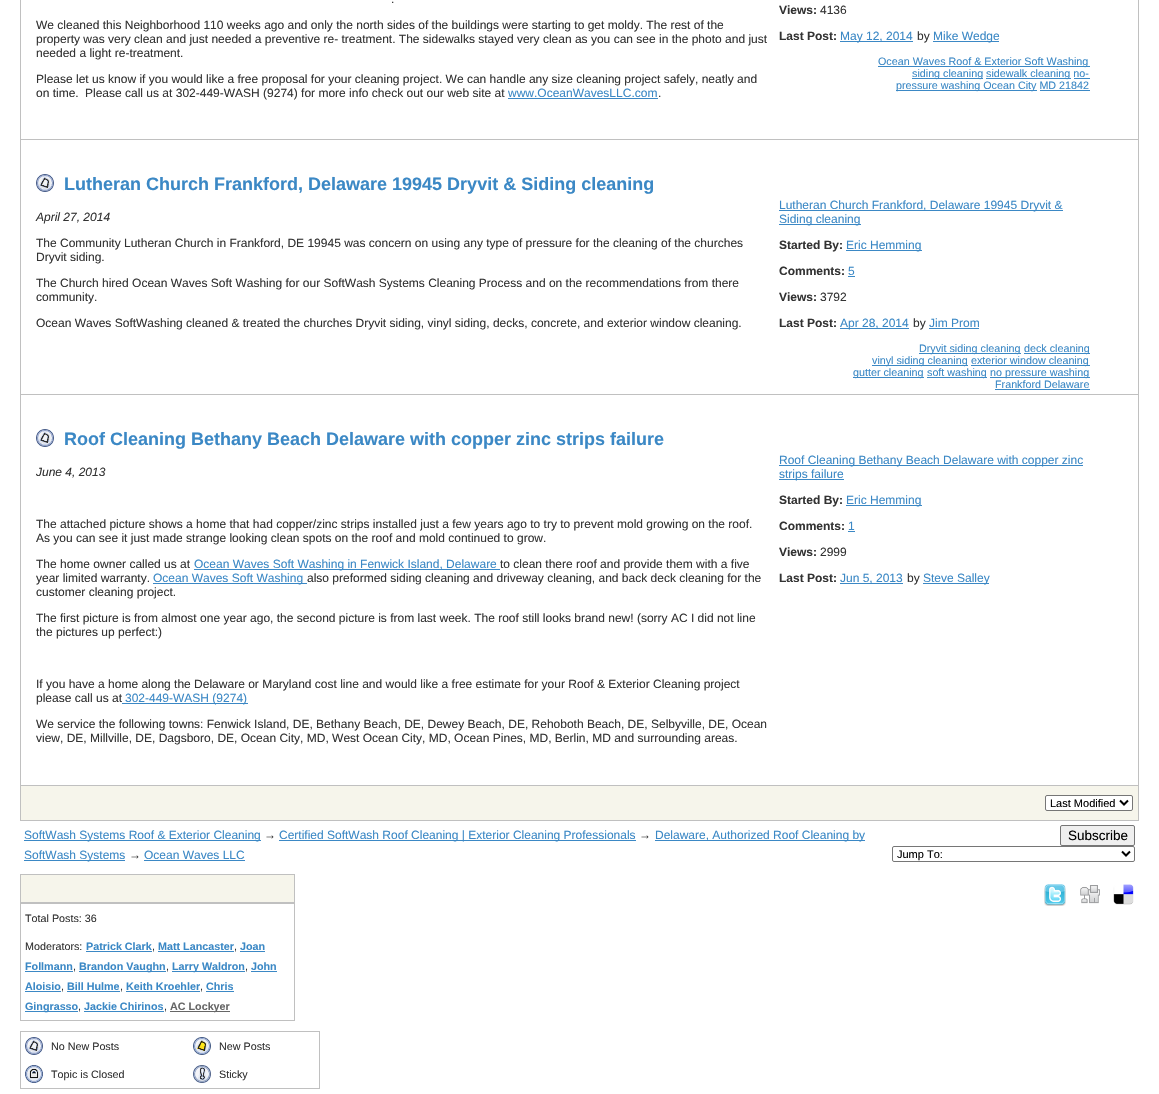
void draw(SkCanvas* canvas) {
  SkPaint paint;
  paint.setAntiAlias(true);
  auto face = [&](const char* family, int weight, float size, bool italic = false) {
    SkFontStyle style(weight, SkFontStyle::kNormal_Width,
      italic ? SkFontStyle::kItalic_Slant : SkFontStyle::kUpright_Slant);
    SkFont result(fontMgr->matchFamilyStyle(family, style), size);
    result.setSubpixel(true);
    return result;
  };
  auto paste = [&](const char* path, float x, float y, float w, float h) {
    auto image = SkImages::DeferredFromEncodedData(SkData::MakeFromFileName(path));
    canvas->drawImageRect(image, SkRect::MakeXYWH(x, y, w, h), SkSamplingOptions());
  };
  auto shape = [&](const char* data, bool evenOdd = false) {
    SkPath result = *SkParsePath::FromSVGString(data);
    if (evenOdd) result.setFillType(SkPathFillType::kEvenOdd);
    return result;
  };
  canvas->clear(0xffffffff);
  {
    const struct { float x, y, w, h; SkColor color; } items[] = {
      {20, 0, 1119, 821, 0xffc0c0c0},
      {21, 0, 1117, 139, 0xffffffff},
      {508, 98, 150, 1, 0xff3b88c5},
      {840, 41, 73, 1, 0xff3b88c5},
      {933, 41, 66, 1, 0xff3b88c5},
      {878, 66, 212, 1, 0xff3b88c5},
      {912, 78, 71, 1, 0xff3b88c5},
      {986, 78, 85, 1, 0xff3b88c5},
      {1074, 78, 16, 1, 0xff3b88c5},
      {896, 90, 141, 1, 0xff3b88c5},
      {1040, 90, 50, 1, 0xff3b88c5},
      {21, 140, 1117, 254, 0xffffffff},
    };
    for (auto [x, y, w, h, color] : items) {
      paint.setColor(color);
      canvas->drawRect(SkRect::MakeXYWH(x, y, w, h), paint);
    }
  }
  paste("img/1.png", 36, 174, 18, 18);
  {
    const struct { float x, y, w, h; SkColor color; } items[] = {
      {779, 210, 284, 1, 0xff3b88c5},
      {779, 224, 82, 1, 0xff3b88c5},
      {846, 250, 76, 1, 0xff3b88c5},
      {848, 276, 7, 1, 0xff3b88c5},
      {840, 328, 69, 1, 0xff3b88c5},
      {929, 328, 50, 1, 0xff3b88c5},
      {919, 353, 102, 1, 0xff3b88c5},
      {1024, 353, 66, 1, 0xff3b88c5},
      {872, 365, 96, 1, 0xff3b88c5},
      {971, 365, 119, 1, 0xff3b88c5},
      {853, 377, 71, 1, 0xff3b88c5},
      {927, 377, 60, 1, 0xff3b88c5},
      {990, 377, 100, 1, 0xff3b88c5},
      {995, 389, 95, 1, 0xff3b88c5},
      {21, 395, 1117, 390, 0xffffffff},
    };
    for (auto [x, y, w, h, color] : items) {
      paint.setColor(color);
      canvas->drawRect(SkRect::MakeXYWH(x, y, w, h), paint);
    }
  }
  paste("img/1.png", 36, 429, 18, 18);
  {
    const struct { float x, y, w, h; SkColor color; } items[] = {
      {194, 569, 306, 1, 0xff3b88c5},
      {153, 583, 154, 1, 0xff3b88c5},
      {779, 465, 304, 1, 0xff3b88c5},
      {779, 479, 65, 1, 0xff3b88c5},
      {846, 505, 76, 1, 0xff3b88c5},
      {848, 531, 7, 1, 0xff3b88c5},
      {840, 583, 63, 1, 0xff3b88c5},
      {923, 583, 66, 1, 0xff3b88c5},
      {21, 786, 1117, 34, 0xfff6f5eb},
    };
    for (auto [x, y, w, h, color] : items) {
      paint.setColor(color);
      canvas->drawRect(SkRect::MakeXYWH(x, y, w, h), paint);
    }
  }
  paint.setColor(0xffffffff);
  canvas->drawRoundRect(SkRect::MakeXYWH(1045.5f, 795.5f, 87, 15), 1.5f, 1.5f, paint);
  paint.setStroke(true);
  paint.setStrokeWidth(1);
  paint.setColor(0xff767676);
  canvas->drawRoundRect(SkRect::MakeXYWH(1045.5f, 795.5f, 87, 15), 1.5f, 1.5f, paint);
  paint.setStrokeWidth(2);
  paint.setColor(0xff000000);
  canvas->drawPath(shape("M1120 800.5L1124 804.5L1128 800.5"), paint);
  paint.setStroke(false);
  {
    const struct { float x, y, w, h; SkColor color; } items[] = {
      {24, 840, 237, 1, 0xff3b88c5},
      {279, 840, 357, 1, 0xff3b88c5},
      {655, 840, 210, 1, 0xff3b88c5},
      {24, 860, 101, 1, 0xff3b88c5},
      {144, 860, 101, 1, 0xff3b88c5},
    };
    for (auto [x, y, w, h, color] : items) {
      paint.setColor(color);
      canvas->drawRect(SkRect::MakeXYWH(x, y, w, h), paint);
    }
  }
  paint.setColor(0xffefefef);
  canvas->drawRoundRect(SkRect::MakeXYWH(1060.5f, 825.5f, 74, 20), 1.5f, 1.5f, paint);
  paint.setStroke(true);
  paint.setStrokeWidth(1);
  paint.setColor(0xff767676);
  canvas->drawRoundRect(SkRect::MakeXYWH(1060.5f, 825.5f, 74, 20), 1.5f, 1.5f, paint);
  canvas->drawRoundRect(SkRect::MakeXYWH(892.5f, 846.5f, 242, 15), 1.5f, 1.5f, paint);
  paint.setStrokeWidth(2);
  paint.setColor(0xff000000);
  canvas->drawPath(shape("M1122 851.5L1126 855.5L1130 851.5"), paint);
  paste("img/2.png", 1044, 884, 22, 22);
  paste("img/3.png", 1080, 885, 20, 19);
  paste("img/4.png", 1113, 884, 21, 21);
  paint.setStroke(false);
  {
    const struct { float x, y, w, h; SkColor color; } items[] = {
      {20, 875, 274, 146, 0xffc0c0c0},
      {20, 874, 275, 1, 0xffc0c0c0},
      {294, 874, 1, 147, 0xffc0c0c0},
      {21, 875, 273, 27, 0xfff6f5eb},
      {21, 904, 273, 116, 0xffffffff},
      {86, 951, 66, 1, 0xff3b88c5},
      {158, 951, 76, 1, 0xff3b88c5},
      {240, 951, 25, 1, 0xff3b88c5},
      {25, 971, 48, 1, 0xff3b88c5},
      {79, 971, 87, 1, 0xff3b88c5},
      {172, 971, 73, 1, 0xff3b88c5},
      {251, 971, 26, 1, 0xff3b88c5},
      {25, 991, 36, 1, 0xff3b88c5},
      {67, 991, 53, 1, 0xff3b88c5},
      {126, 991, 74, 1, 0xff3b88c5},
      {206, 991, 28, 1, 0xff3b88c5},
      {25, 1011, 53, 1, 0xff3b88c5},
      {84, 1011, 80, 1, 0xff3b88c5},
      {170, 1011, 60, 1, 0xff666666},
      {20, 1032, 299, 57, 0xffc0c0c0},
      {20, 1031, 300, 1, 0xffc0c0c0},
      {319, 1031, 1, 58, 0xffc0c0c0},
      {21, 1032, 298, 28, 0xffffffff},
    };
    for (auto [x, y, w, h, color] : items) {
      paint.setColor(color);
      canvas->drawRect(SkRect::MakeXYWH(x, y, w, h), paint);
    }
  }
  paste("img/1.png", 25, 1037, 18, 18);
  paste("img/5.png", 193, 1037, 18, 18);
  canvas->drawRect(SkRect::MakeXYWH(21, 1060, 298, 28), paint);
  paste("img/6.png", 25, 1065, 18, 18);
  paste("img/7.png", 193, 1065, 18, 18);
  auto f0 = face("Liberation Sans", 400, 12);
  paint.setColor(0xff333333);
  {
    const struct { const char* s; float x, y; } items[] = {
      {".", 391, 3},
      {"We cleaned this Neighborhood 110 weeks ago and only the north sides of the buildings were starting to get moldy. The rest of the", 36, 29},
      {"property was very clean and just needed a preventive re- treatment. The sidewalks stayed very clean as you can see in the photo and just", 36, 43},
      {"needed a light re-treatment.", 36, 57},
      {"Please let us know if you would like a free proposal for your cleaning project. We can handle any size cleaning project safely, neatly and", 36, 83},
      {"on time.", 36, 97},
      {"Please call us at 302-449-WASH (9274) for more info check out our web site at", 85, 97},
    };
    for (auto [s, x, y] : items) {
      canvas->drawString(s, x, y, f0, paint);
    }
  }
  paint.setColor(0xff3b88c5);
  canvas->drawString("www.OceanWavesLLC.com", 508, 97, f0, paint);
  paint.setColor(0xff333333);
  canvas->drawString(".", 658, 97, f0, paint);
  auto f1 = face("Liberation Sans", 700, 12);
  canvas->drawString("Views:", 779, 14, f1, paint);
  canvas->drawString("4136", 820, 14, f0, paint);
  canvas->drawString("Last Post:", 779, 40, f1, paint);
  paint.setColor(0xff3b88c5);
  canvas->drawString("May 12, 2014", 840, 40, f0, paint);
  paint.setColor(0xff333333);
  canvas->drawString("by", 917, 40, f0, paint);
  paint.setColor(0xff3b88c5);
  canvas->drawString("Mike Wedge", 933, 40, f0, paint);
  auto f2 = face("Liberation Sans", 400, 10.75f);
  {
    const struct { const char* s; float x, y; } items[] = {
      {"Ocean Waves Roof & Exterior Soft Washing", 878, 65},
      {"siding cleaning", 912, 77},
      {"sidewalk cleaning no-", 986, 77},
      {"pressure washing Ocean City MD 21842", 896, 89},
    };
    for (auto [s, x, y] : items) {
      canvas->drawString(s, x, y, f2, paint);
    }
  }
  auto f3 = face("Liberation Sans", 700, 18);
  canvas->drawString("Lutheran Church Frankford, Delaware 19945 Dryvit & Siding cleaning", 64, 190, f3, paint);
  auto f4 = face("Liberation Sans", 400, 12, true);
  paint.setColor(0xff333333);
  canvas->drawString("April 27, 2014", 36, 221, f4, paint);
  {
    const struct { const char* s; float x, y; } items[] = {
      {"The Community Lutheran Church in Frankford, DE 19945 was concern on using any type of pressure for the cleaning of the churches", 36, 247},
      {"Dryvit siding.", 36, 261},
      {"The Church hired Ocean Waves Soft Washing for our SoftWash Systems Cleaning Process and on the recommendations from there", 36, 287},
      {"community.", 36, 301},
      {"Ocean Waves SoftWashing cleaned & treated the churches Dryvit siding, vinyl siding, decks, concrete, and exterior window cleaning.", 36, 327},
    };
    for (auto [s, x, y] : items) {
      canvas->drawString(s, x, y, f0, paint);
    }
  }
  paint.setColor(0xff3b88c5);
  canvas->drawString("Lutheran Church Frankford, Delaware 19945 Dryvit &", 779, 209, f0, paint);
  canvas->drawString("Siding cleaning", 779, 223, f0, paint);
  paint.setColor(0xff333333);
  canvas->drawString("Started By:", 779, 249, f1, paint);
  paint.setColor(0xff3b88c5);
  canvas->drawString("Eric Hemming", 846, 249, f0, paint);
  paint.setColor(0xff333333);
  canvas->drawString("Comments:", 779, 275, f1, paint);
  paint.setColor(0xff3b88c5);
  canvas->drawString("5", 848, 275, f0, paint);
  paint.setColor(0xff333333);
  canvas->drawString("Views:", 779, 301, f1, paint);
  canvas->drawString("3792", 820, 301, f0, paint);
  canvas->drawString("Last Post:", 779, 327, f1, paint);
  paint.setColor(0xff3b88c5);
  canvas->drawString("Apr 28, 2014", 840, 327, f0, paint);
  paint.setColor(0xff333333);
  canvas->drawString("by", 913, 327, f0, paint);
  paint.setColor(0xff3b88c5);
  canvas->drawString("Jim Prom", 929, 327, f0, paint);
  {
    const struct { const char* s; float x, y; } items[] = {
      {"Dryvit siding cleaning", 919, 352},
      {"deck cleaning", 1024, 352},
      {"vinyl siding cleaning", 872, 364},
      {"exterior window cleaning", 971, 364},
      {"gutter cleaning", 853, 376},
      {"soft washing", 927, 376},
      {"no pressure washing", 990, 376},
      {"Frankford Delaware", 995, 388},
    };
    for (auto [s, x, y] : items) {
      canvas->drawString(s, x, y, f2, paint);
    }
  }
  canvas->drawString("Roof Cleaning Bethany Beach Delaware with copper zinc strips failure", 64, 445, f3, paint);
  paint.setColor(0xff333333);
  canvas->drawString("June 4, 2013", 36, 476, f4, paint);
  {
    const struct { const char* s; float x, y; } items[] = {
      {"The attached picture shows a home that had copper/zinc strips installed just a few years ago to try to prevent mold growing on the roof.", 36, 528},
      {"As you can see it just made strange looking clean spots on the roof and mold continued to grow.", 36, 542},
      {"The home owner called us at", 36, 568},
    };
    for (auto [s, x, y] : items) {
      canvas->drawString(s, x, y, f0, paint);
    }
  }
  paint.setColor(0xff3b88c5);
  canvas->drawString("Ocean Waves Soft Washing in Fenwick Island, Delaware", 194, 568, f0, paint);
  paint.setColor(0xff333333);
  canvas->drawString("to clean there roof and provide them with a five", 500, 568, f0, paint);
  canvas->drawString("year limited warranty.", 36, 582, f0, paint);
  paint.setColor(0xff3b88c5);
  canvas->drawString("Ocean Waves Soft Washing", 153, 582, f0, paint);
  paint.setColor(0xff333333);
  {
    const struct { const char* s; float x, y; } items[] = {
      {"also preformed siding cleaning and driveway cleaning, and back deck cleaning for the", 307, 582},
      {"customer cleaning project.", 36, 596},
      {"The first picture is from almost one year ago, the second picture is from last week. The roof still looks brand new! (sorry AC I did not line", 36, 622},
      {"the pictures up perfect:)", 36, 636},
      {"If you have a home along the Delaware or Maryland cost line and would like a free estimate for your Roof & Exterior Cleaning project", 36, 688},
      {"please call us at", 36, 702},
    };
    for (auto [s, x, y] : items) {
      canvas->drawString(s, x, y, f0, paint);
    }
  }
  paint.setColor(0xff3b88c5);
  canvas->drawRect(SkRect::MakeXYWH(122, 703, 126, 1), paint);
  canvas->drawString("302-449-WASH (9274)", 125, 702, f0, paint);
  paint.setColor(0xff333333);
  canvas->drawString("We service the following towns: Fenwick Island, DE, Bethany Beach, DE, Dewey Beach, DE, Rehoboth Beach, DE, Selbyville, DE, Ocean", 36, 728, f0, paint);
  canvas->drawString("view, DE, Millville, DE, Dagsboro, DE, Ocean City, MD, West Ocean City, MD, Ocean Pines, MD, Berlin, MD and surrounding areas.", 36, 742, f0, paint);
  paint.setColor(0xff3b88c5);
  canvas->drawString("Roof Cleaning Bethany Beach Delaware with copper zinc", 779, 464, f0, paint);
  canvas->drawString("strips failure", 779, 478, f0, paint);
  paint.setColor(0xff333333);
  canvas->drawString("Started By:", 779, 504, f1, paint);
  paint.setColor(0xff3b88c5);
  canvas->drawString("Eric Hemming", 846, 504, f0, paint);
  paint.setColor(0xff333333);
  canvas->drawString("Comments:", 779, 530, f1, paint);
  paint.setColor(0xff3b88c5);
  canvas->drawString("1", 848, 530, f0, paint);
  paint.setColor(0xff333333);
  canvas->drawString("Views:", 779, 556, f1, paint);
  canvas->drawString("2999", 820, 556, f0, paint);
  canvas->drawString("Last Post:", 779, 582, f1, paint);
  paint.setColor(0xff3b88c5);
  canvas->drawString("Jun 5, 2013", 840, 582, f0, paint);
  paint.setColor(0xff333333);
  canvas->drawString("by", 907, 582, f0, paint);
  paint.setColor(0xff3b88c5);
  canvas->drawString("Steve Salley", 923, 582, f0, paint);
  auto f5 = face("Liberation Sans", 400, 11);
  paint.setColor(0xff000000);
  canvas->drawString("Last Modified", 1050, 807, f5, paint);
  paint.setColor(0xff3b88c5);
  canvas->drawString("SoftWash Systems Roof & Exterior Cleaning", 24, 839, f0, paint);
  paint.setColor(0xff333333);
  canvas->drawString("→", 264, 839, f0, paint);
  paint.setColor(0xff3b88c5);
  canvas->drawString("Certified SoftWash Roof Cleaning | Exterior Cleaning Professionals", 279, 839, f0, paint);
  paint.setColor(0xff333333);
  canvas->drawString("→", 639, 839, f0, paint);
  paint.setColor(0xff3b88c5);
  canvas->drawString("Delaware, Authorized Roof Cleaning by", 655, 839, f0, paint);
  canvas->drawString("SoftWash Systems", 24, 859, f0, paint);
  paint.setColor(0xff333333);
  canvas->drawString("→", 129, 859, f0, paint);
  paint.setColor(0xff3b88c5);
  canvas->drawString("Ocean Waves LLC", 144, 859, f0, paint);
  auto f6 = face("Liberation Sans", 400, 13.5f);
  paint.setColor(0xff000000);
  canvas->drawString("Subscribe", 1068, 840, f6, paint);
  canvas->drawString("Jump To:", 897, 858, f5, paint);
  paint.setColor(0xff333333);
  canvas->drawString("Total Posts: 36", 25, 922, f2, paint);
  canvas->drawString("Moderators:", 25, 950, f2, paint);
  auto f7 = face("Liberation Sans", 700, 10.75f);
  paint.setColor(0xff3b88c5);
  canvas->drawString("Patrick Clark", 86, 950, f7, paint);
  paint.setColor(0xff333333);
  canvas->drawString(",", 152, 950, f2, paint);
  paint.setColor(0xff3b88c5);
  canvas->drawString("Matt Lancaster", 158, 950, f7, paint);
  paint.setColor(0xff333333);
  canvas->drawString(",", 234, 950, f2, paint);
  paint.setColor(0xff3b88c5);
  canvas->drawString("Joan", 240, 950, f7, paint);
  canvas->drawString("Follmann", 25, 970, f7, paint);
  paint.setColor(0xff333333);
  canvas->drawString(",", 73, 970, f2, paint);
  paint.setColor(0xff3b88c5);
  canvas->drawString("Brandon Vaughn", 79, 970, f7, paint);
  paint.setColor(0xff333333);
  canvas->drawString(",", 166, 970, f2, paint);
  paint.setColor(0xff3b88c5);
  canvas->drawString("Larry Waldron", 172, 970, f7, paint);
  paint.setColor(0xff333333);
  canvas->drawString(",", 245, 970, f2, paint);
  paint.setColor(0xff3b88c5);
  canvas->drawString("John", 251, 970, f7, paint);
  canvas->drawString("Aloisio", 25, 990, f7, paint);
  paint.setColor(0xff333333);
  canvas->drawString(",", 61, 990, f2, paint);
  paint.setColor(0xff3b88c5);
  canvas->drawString("Bill Hulme", 67, 990, f7, paint);
  paint.setColor(0xff333333);
  canvas->drawString(",", 120, 990, f2, paint);
  paint.setColor(0xff3b88c5);
  canvas->drawString("Keith Kroehler", 126, 990, f7, paint);
  paint.setColor(0xff333333);
  canvas->drawString(",", 200, 990, f2, paint);
  paint.setColor(0xff3b88c5);
  canvas->drawString("Chris", 206, 990, f7, paint);
  canvas->drawString("Gingrasso", 25, 1010, f7, paint);
  paint.setColor(0xff333333);
  canvas->drawString(",", 78, 1010, f2, paint);
  paint.setColor(0xff3b88c5);
  canvas->drawString("Jackie Chirinos", 84, 1010, f7, paint);
  paint.setColor(0xff333333);
  canvas->drawString(",", 164, 1010, f2, paint);
  paint.setColor(0xff666666);
  canvas->drawString("AC Lockyer", 170, 1010, f7, paint);
  paint.setColor(0xff333333);
  {
    const struct { const char* s; float x, y; } items[] = {
      {"No New Posts", 51, 1050},
      {"New Posts", 219, 1050},
      {"Topic is Closed", 51, 1078},
      {"Sticky", 219, 1078},
    };
    for (auto [s, x, y] : items) {
      canvas->drawString(s, x, y, f2, paint);
    }
  }
}
